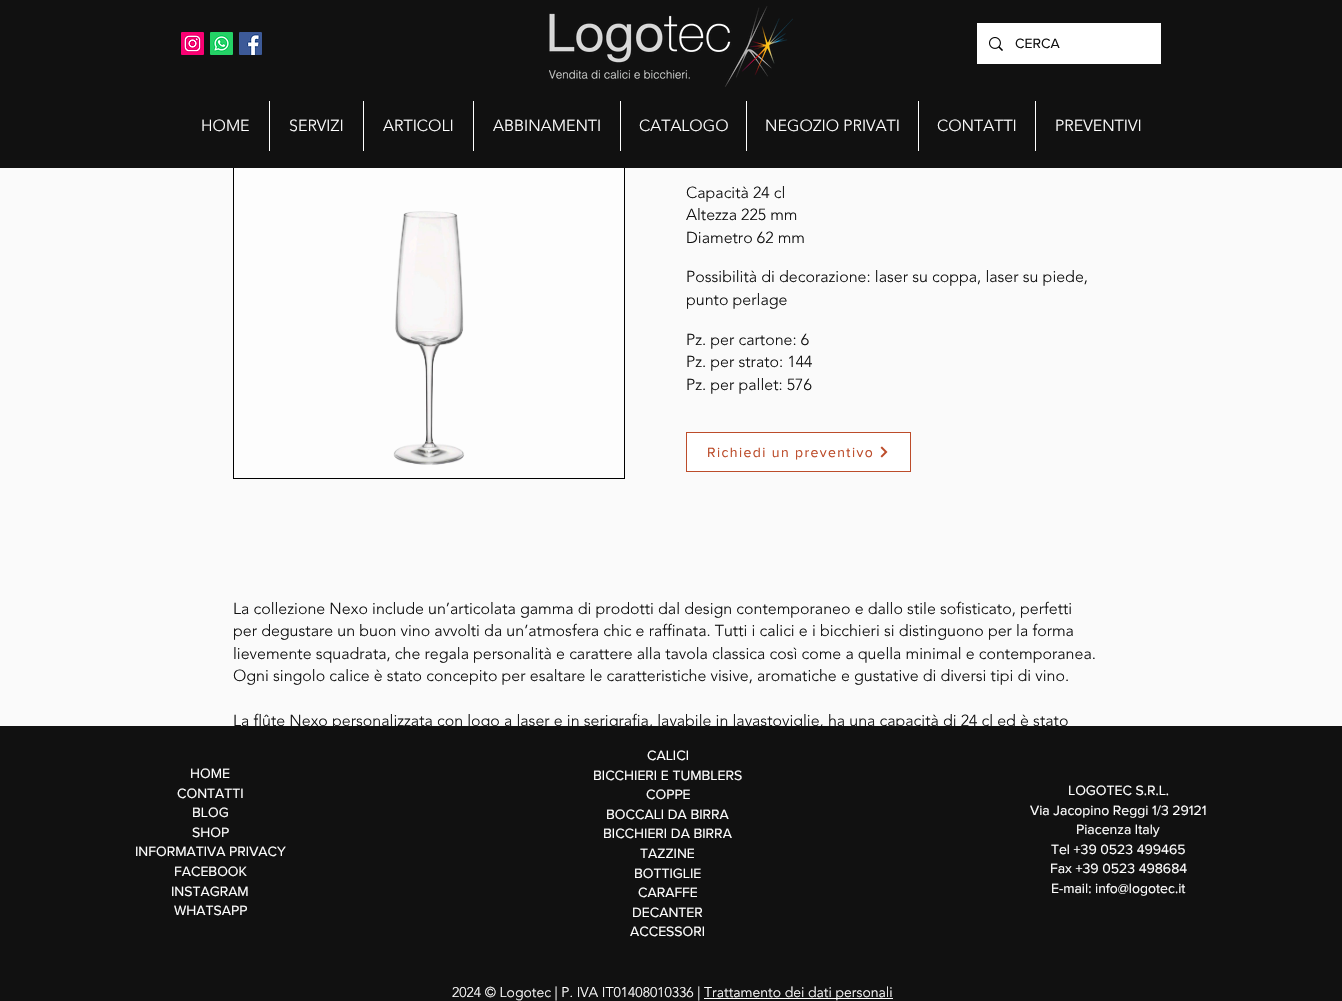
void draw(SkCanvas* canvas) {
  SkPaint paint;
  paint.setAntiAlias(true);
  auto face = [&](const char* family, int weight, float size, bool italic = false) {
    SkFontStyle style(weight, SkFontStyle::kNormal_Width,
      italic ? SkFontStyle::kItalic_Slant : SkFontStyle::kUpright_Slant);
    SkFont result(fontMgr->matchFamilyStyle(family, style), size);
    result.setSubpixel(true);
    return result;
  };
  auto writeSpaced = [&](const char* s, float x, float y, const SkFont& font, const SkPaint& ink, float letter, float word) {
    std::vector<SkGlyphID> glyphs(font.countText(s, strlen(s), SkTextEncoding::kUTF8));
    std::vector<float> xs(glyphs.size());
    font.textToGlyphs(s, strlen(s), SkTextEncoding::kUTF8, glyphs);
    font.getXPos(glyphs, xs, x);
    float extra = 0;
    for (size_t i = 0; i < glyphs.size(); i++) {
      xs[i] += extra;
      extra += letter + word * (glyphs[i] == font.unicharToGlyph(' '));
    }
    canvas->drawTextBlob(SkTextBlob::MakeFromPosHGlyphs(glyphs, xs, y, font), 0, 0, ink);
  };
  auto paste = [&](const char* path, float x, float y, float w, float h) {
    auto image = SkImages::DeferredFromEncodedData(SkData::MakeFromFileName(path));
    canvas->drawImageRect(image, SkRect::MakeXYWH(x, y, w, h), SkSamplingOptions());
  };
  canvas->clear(0xfffafafa);
  paint.setColor(0xff111111);
  canvas->drawRect(SkRect::MakeXYWH(0, 0, 1342, 168), paint);
  paste("img/1.png", 181, 32, 23, 23);
  paste("img/2.png", 210, 32, 23, 23);
  paste("img/3.png", 239, 32, 23, 23);
  paste("img/4.png", 549, 6, 244, 81);
  paint.setColor(0xffffffff);
  canvas->drawRect(SkRect::MakeXYWH(977, 23, 184, 41), paint);
  paste("img/5.png", 989, 37, 14, 14);
  {
    const struct { float x, y, w, h; SkColor color; } items[] = {
      {269, 101, 1, 50, 0xffffffff},
      {363, 101, 1, 50, 0xffffffff},
      {473, 101, 1, 50, 0xffffffff},
      {620, 101, 1, 50, 0xffffffff},
      {746, 101, 1, 50, 0xffffffff},
      {918, 101, 1, 50, 0xffffffff},
      {1035, 101, 1, 50, 0xffffffff},
      {233, 168, 392, 311, 0xff000000},
    };
    for (auto [x, y, w, h, color] : items) {
      paint.setColor(color);
      canvas->drawRect(SkRect::MakeXYWH(x, y, w, h), paint);
    }
  }
  paste("img/6.png", 234, 168, 390, 310);
  paint.setColor(0xffffffff);
  canvas->drawRect(SkRect::MakeXYWH(686.5f, 432.5f, 224, 39), paint);
  paint.setStroke(true);
  paint.setStrokeWidth(1);
  paint.setColor(0xffbc4c2a);
  canvas->drawRect(SkRect::MakeXYWH(686.5f, 432.5f, 224, 39), paint);
  paste("img/7.png", 880, 446, 8, 12);
  paint.setStroke(false);
  paint.setColor(0xff111111);
  canvas->drawRect(SkRect::MakeXYWH(0, 726, 1342, 275), paint);
  paint.setColor(0xffffffff);
  canvas->drawRect(SkRect::MakeXYWH(704, 998, 189, 1), paint);
  auto f0 = face("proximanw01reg", 400, 14);
  paint.setColor(0xff111111);
  canvas->drawString("CERCA", 1015, 48, f0, paint);
  auto f1 = face("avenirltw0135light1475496", 300, 16);
  paint.setColor(0xffffffff);
  {
    const struct { const char* s; float x, y; } items[] = {
      {"HOME", 201, 131},
      {"SERVIZI", 289, 131},
      {"ARTICOLI", 383, 131},
      {"ABBINAMENTI", 493, 131},
      {"CATALOGO", 639, 131},
      {"NEGOZIO PRIVATI", 765, 131},
      {"CONTATTI", 937, 131},
      {"PREVENTIVI", 1055, 131},
    };
    for (auto [s, x, y] : items) {
      canvas->drawString(s, x, y, f1, paint);
    }
  }
  paint.setColor(0xff111111);
  {
    const struct { const char* s; float x, y; } items[] = {
      {"Capacità 24 cl", 686, 198},
      {"Altezza 225 mm", 686, 220},
      {"Diametro 62 mm", 686, 243},
      {"Possibilità di decorazione: laser su coppa, laser su piede,", 686, 282},
      {"punto perlage", 686, 305},
      {"Pz. per cartone: 6", 686, 345},
      {"Pz. per strato: 144", 686, 367},
      {"Pz. per pallet: 576", 686, 390},
    };
    for (auto [s, x, y] : items) {
      canvas->drawString(s, x, y, f1, paint);
    }
  }
  paint.setColor(0xffbc4c2a);
  writeSpaced("Richiedi un preventivo", 707, 457, f0, paint, 1.4f, 0);
  paint.setColor(0xff111111);
  {
    const struct { const char* s; float x, y; } items[] = {
      {"La collezione Nexo include un’articolata gamma di prodotti dal design contemporaneo e dallo stile sofisticato, perfetti", 233, 614},
      {"per degustare un buon vino avvolti da un’atmosfera chic e raffinata. Tutti i calici e i bicchieri si distinguono per la forma", 233, 636},
      {"lievemente squadrata, che regala personalità e carattere alla tavola classica così come a quella minimal e contemporanea.", 233, 659},
      {"Ogni singolo calice è stato concepito per esaltare le caratteristiche visive, aromatiche e gustative di diversi tipi di vino.", 233, 681},
      {"La flûte Nexo personalizzata con logo a laser e in serigrafia, lavabile in lavastoviglie, ha una capacità di 24 cl ed è stato", 233, 726},
    };
    for (auto [s, x, y] : items) {
      canvas->drawString(s, x, y, f1, paint);
    }
  }
  paint.setColor(0xffffffff);
  {
    const struct { const char* s; float x, y; } items[] = {
      {"HOME", 190, 778},
      {"CONTATTI", 177, 798},
      {"BLOG", 192, 817},
      {"SHOP", 192, 837},
      {"INFORMATIVA PRIVACY", 135, 856},
      {"FACEBOOK", 174, 876},
      {"INSTAGRAM", 171, 896},
      {"WHATSAPP", 174, 915},
      {"CALICI", 647, 760},
      {"BICCHIERI E TUMBLERS", 593, 780},
      {"COPPE", 646, 799},
      {"BOCCALI DA BIRRA", 606, 819},
      {"BICCHIERI DA BIRRA", 603, 838},
      {"TAZZINE", 640, 858},
      {"BOTTIGLIE", 634, 878},
      {"CARAFFE", 638, 897},
      {"DECANTER", 632, 917},
      {"ACCESSORI", 630, 936},
      {"LOGOTEC S.R.L.", 1068, 795},
      {"Via Jacopino Reggi 1/3 29121", 1030, 815},
      {"Piacenza Italy", 1076, 834},
      {"Tel +39 0523 499465", 1051, 854},
      {"Fax +39 0523 498684", 1050, 873},
      {"E-mail: info@logotec.it", 1051, 893},
    };
    for (auto [s, x, y] : items) {
      canvas->drawString(s, x, y, f0, paint);
    }
  }
  auto f2 = face("avenirltw0135light1475496", 300, 14);
  canvas->drawString("2024 © Logotec | P. IVA IT01408010336 |", 452, 997, f2, paint);
  canvas->drawString("Trattamento dei dati personali", 704, 997, f2, paint);
}
